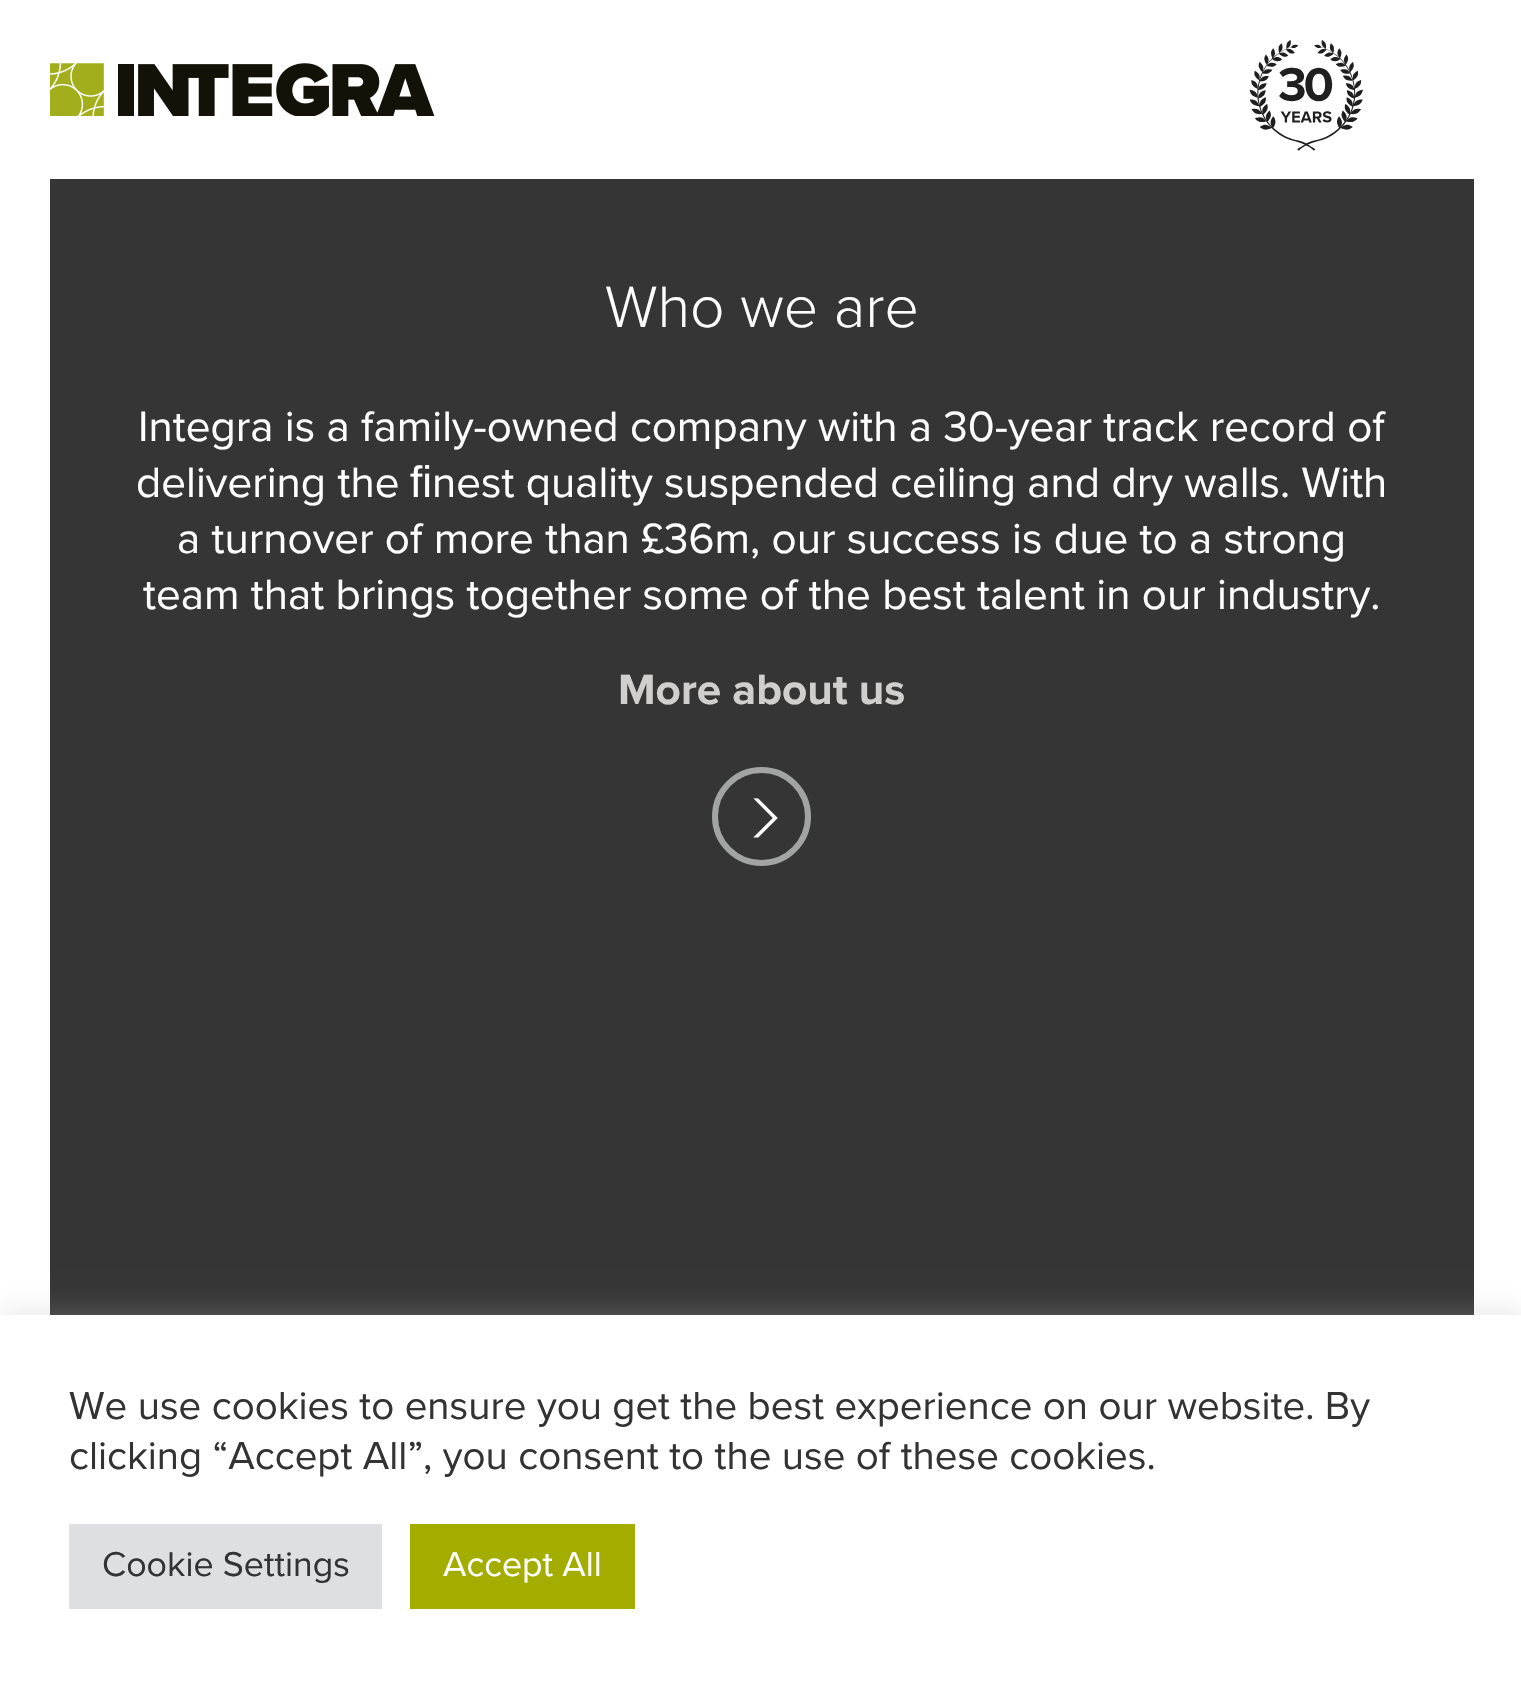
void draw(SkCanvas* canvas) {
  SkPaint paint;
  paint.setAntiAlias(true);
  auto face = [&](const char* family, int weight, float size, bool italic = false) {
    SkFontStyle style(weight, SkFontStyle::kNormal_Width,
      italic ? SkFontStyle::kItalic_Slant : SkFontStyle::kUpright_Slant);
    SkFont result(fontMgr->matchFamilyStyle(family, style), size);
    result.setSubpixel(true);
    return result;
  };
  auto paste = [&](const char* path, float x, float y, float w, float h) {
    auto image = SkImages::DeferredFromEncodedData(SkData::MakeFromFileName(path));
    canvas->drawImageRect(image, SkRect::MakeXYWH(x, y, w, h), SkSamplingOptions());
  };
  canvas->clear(0xffffffff);
  paste("img/1.png", 50, 63, 385, 53);
  paste("img/2.png", 1249, 40, 114, 111);
  paint.setColor(0xff353535);
  canvas->drawRect(SkRect::MakeXYWH(50, 179, 1424, 1136), paint);
  paste("img/3.png", 753, 798, 25, 40);
  paint.setStroke(true);
  paint.setStrokeWidth(6);
  paint.setColor(0xffa2a4a3);
  canvas->drawCircle(761.5f, 816.5f, 46.5f, paint);
  paint.setStroke(false);
  paint.setColor(0x4dacabab);
  paint.setMaskFilter(SkMaskFilter::MakeBlur(kNormal_SkBlurStyle, 14));
  canvas->drawRect(SkRect::MakeXYWH(0, 1312, 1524, 377), paint);
  paint.setMaskFilter(nullptr);
  {
    const struct { float x, y, w, h; SkColor color; } items[] = {
      {0, 1315, 1521, 375, 0xffffffff},
      {69, 1524, 313, 85, 0xffdedfe0},
      {410, 1524, 225, 85, 0xffa2ad00},
    };
    for (auto [x, y, w, h, color] : items) {
      paint.setColor(color);
      canvas->drawRect(SkRect::MakeXYWH(x, y, w, h), paint);
    }
  }
  auto f0 = face("Proxima Nova", 300, 60.5f);
  paint.setColor(0xffffffff);
  canvas->drawString("Who we are", 605, 327, f0, paint);
  auto f1 = face("Proxima Nova", 400, 44);
  canvas->drawString("Integra is a family-owned company with a 30-year track record of", 138, 441, f1, paint);
  canvas->drawString("delivering the", 136, 497, f1, paint);
  auto f2 = face("Liberation Sans", 400, 44);
  canvas->drawString("ﬁ", 410, 497, f2, paint);
  {
    const struct { const char* s; float x, y; } items[] = {
      {"nest quality suspended ceiling and dry walls. With", 432, 497},
      {"a turnover of more than £36m, our success is due to a strong", 177, 553},
      {"team that brings together some of the best talent in our industry.", 143, 609},
    };
    for (auto [s, x, y] : items) {
      canvas->drawString(s, x, y, f1, paint);
    }
  }
  auto f3 = face("Proxima Nova", 700, 44);
  paint.setColor(0xffd0cfcd);
  canvas->drawString("More about us", 618, 704, f3, paint);
  auto f4 = face("Proxima Nova", 400, 40.3f);
  paint.setColor(0xff333333);
  canvas->drawString("We use cookies to ensure you get the best experience on our website. By", 69, 1419, f4, paint);
  canvas->drawString("clicking “Accept All”, you consent to the use of these cookies.", 69, 1469, f4, paint);
  auto f5 = face("Proxima Nova", 400, 35.75f);
  canvas->drawString("Cookie Settings", 102, 1576, f5, paint);
  paint.setColor(0xffffffff);
  canvas->drawString("Accept All", 443, 1576, f5, paint);
}
